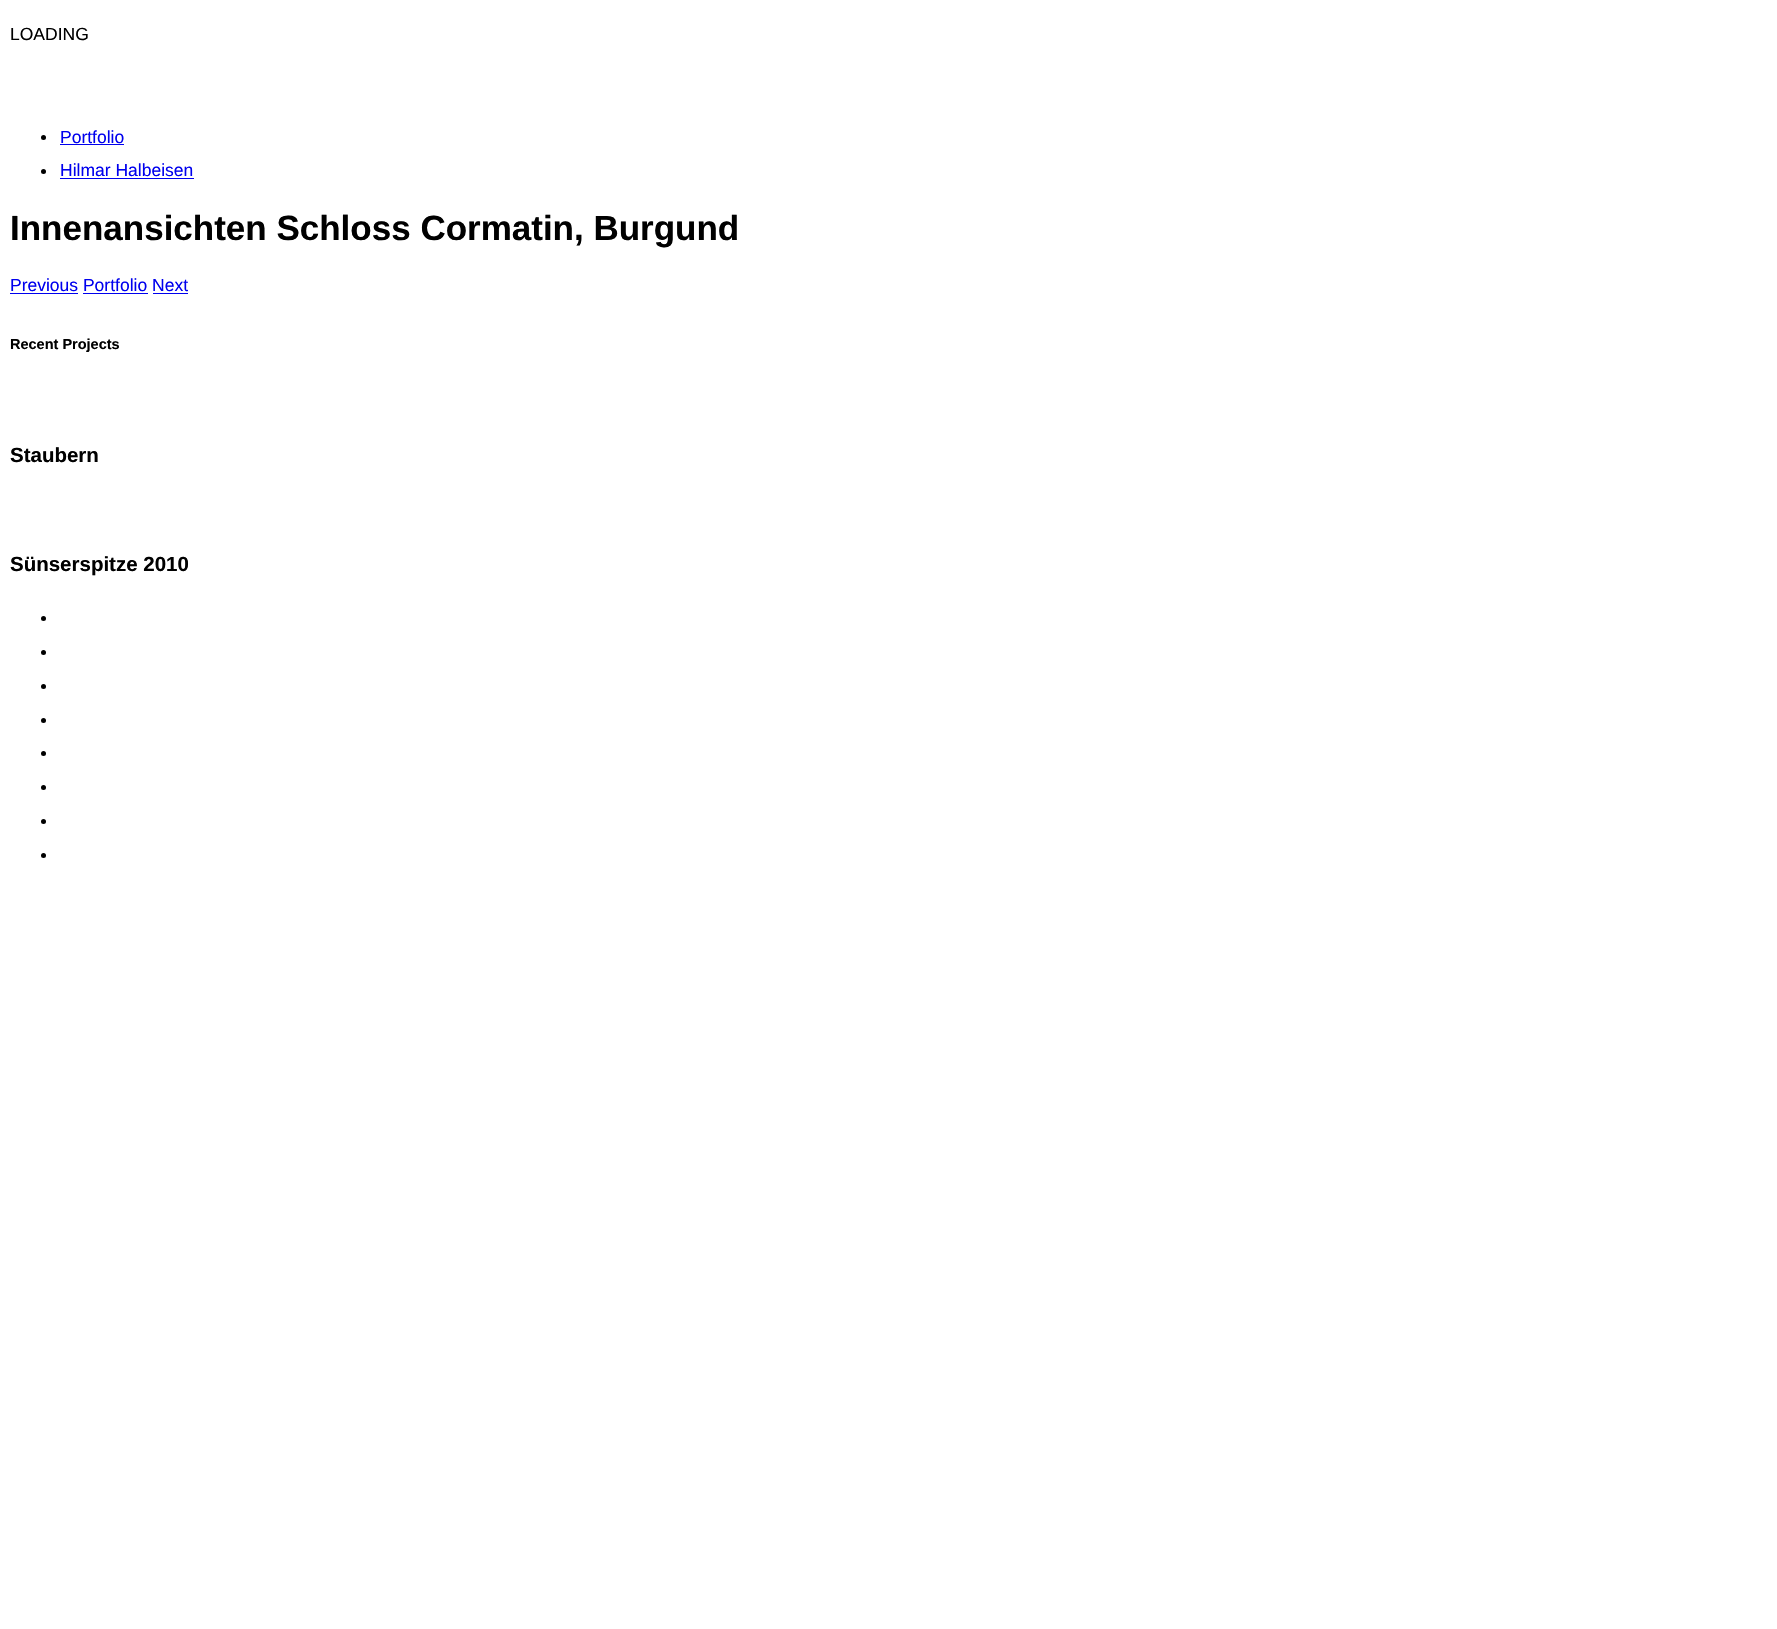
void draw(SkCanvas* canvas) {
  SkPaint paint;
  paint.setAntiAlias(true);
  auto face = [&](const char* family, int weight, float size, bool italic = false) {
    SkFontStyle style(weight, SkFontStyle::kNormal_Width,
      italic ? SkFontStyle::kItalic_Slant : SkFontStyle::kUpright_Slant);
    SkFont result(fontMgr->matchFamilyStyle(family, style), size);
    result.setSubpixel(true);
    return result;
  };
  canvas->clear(0xffffffff);
  paint.setColor(0xff000000);
  canvas->drawCircle(43.5f, 137.5f, 2.5f, paint);
  paint.setColor(0xff0000ee);
  canvas->drawRect(SkRect::MakeXYWH(60, 144, 64, 1), paint);
  paint.setColor(0xff000000);
  canvas->drawCircle(43.5f, 171.5f, 2.5f, paint);
  {
    const struct { float x, y, w, h; SkColor color; } items[] = {
      {60, 178, 134, 1, 0xff0000ee},
      {10, 293, 68, 1, 0xff0000ee},
      {83, 293, 65, 1, 0xff0000ee},
      {153, 293, 35, 1, 0xff0000ee},
    };
    for (auto [x, y, w, h, color] : items) {
      paint.setColor(color);
      canvas->drawRect(SkRect::MakeXYWH(x, y, w, h), paint);
    }
  }
  paint.setColor(0xff000000);
  canvas->drawCircle(43.5f, 618.5f, 2.5f, paint);
  canvas->drawCircle(43.5f, 652.5f, 2.5f, paint);
  canvas->drawCircle(43.5f, 686.5f, 2.5f, paint);
  canvas->drawCircle(43.5f, 720.5f, 2.5f, paint);
  canvas->drawCircle(43.5f, 753.5f, 2.5f, paint);
  canvas->drawCircle(43.5f, 787.5f, 2.5f, paint);
  canvas->drawCircle(43.5f, 821.5f, 2.5f, paint);
  canvas->drawCircle(43.5f, 855.5f, 2.5f, paint);
  auto f0 = face("Liberation Sans", 400, 17.5f);
  canvas->drawString("LOADING", 10, 40, f0, paint);
  paint.setColor(0xff0000ee);
  canvas->drawString("Portfolio", 60, 143, f0, paint);
  canvas->drawString("Hilmar Halbeisen", 60, 176, f0, paint);
  auto f1 = face("Liberation Sans", 700, 35);
  paint.setColor(0xff000000);
  canvas->drawString("Innenansichten Schloss Cormatin, Burgund", 10, 240, f1, paint);
  paint.setColor(0xff0000ee);
  canvas->drawString("Previous Portfolio Next", 10, 291, f0, paint);
  auto f2 = face("Liberation Sans", 700, 14.5f);
  paint.setColor(0xff000000);
  canvas->drawString("Recent Projects", 10, 349, f2, paint);
  auto f3 = face("Liberation Sans", 700, 20.5f);
  canvas->drawString("Staubern", 10, 462, f3, paint);
  canvas->drawString("Sünserspitze 2010", 10, 571, f3, paint);
}
